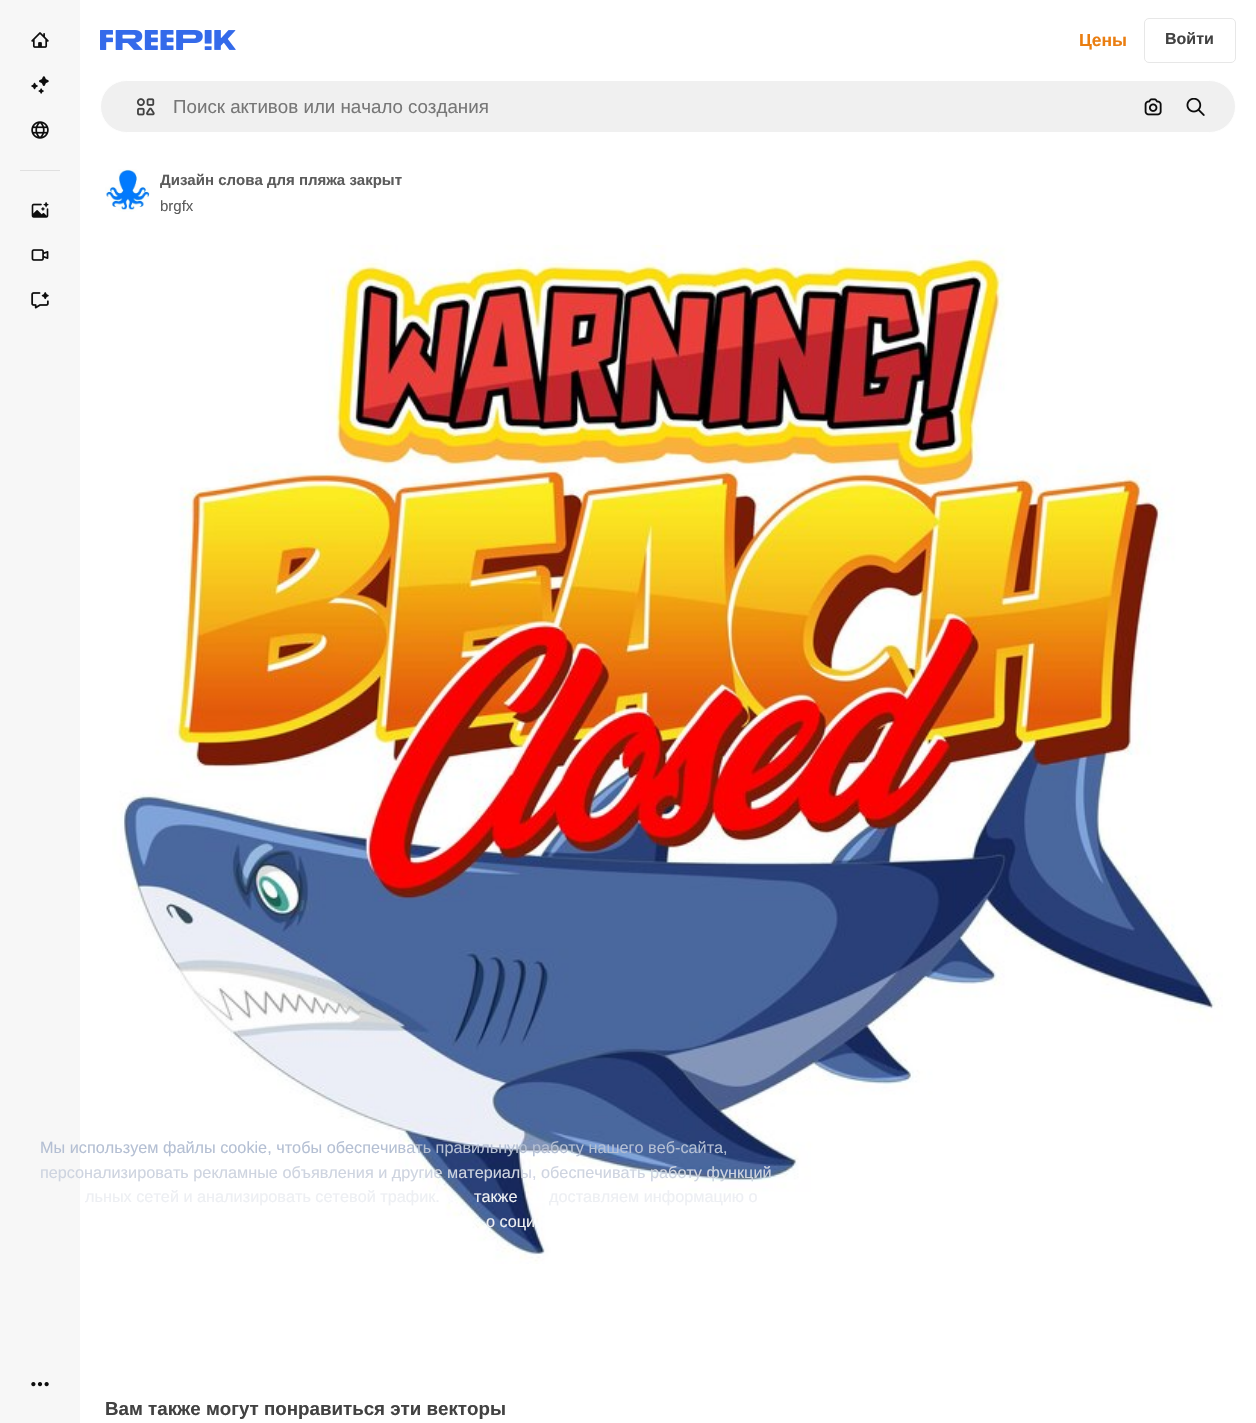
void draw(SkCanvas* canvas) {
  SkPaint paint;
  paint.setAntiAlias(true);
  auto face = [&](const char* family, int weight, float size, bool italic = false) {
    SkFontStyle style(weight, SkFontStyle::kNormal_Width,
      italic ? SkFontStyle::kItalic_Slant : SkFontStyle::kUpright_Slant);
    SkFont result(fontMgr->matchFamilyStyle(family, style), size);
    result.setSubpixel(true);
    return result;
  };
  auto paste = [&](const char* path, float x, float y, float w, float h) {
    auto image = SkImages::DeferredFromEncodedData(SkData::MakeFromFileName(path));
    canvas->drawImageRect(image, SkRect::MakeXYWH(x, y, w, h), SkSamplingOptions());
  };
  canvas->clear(0xffffffff);
  paint.setColor(0xfff7f7f7);
  canvas->drawRect(SkRect::MakeXYWH(0, 0, 80, 1423), paint);
  paste("img/1.png", 31, 32, 18, 16);
  paste("img/2.png", 31, 76, 18, 18);
  paste("img/3.png", 31, 121, 18, 18);
  paint.setColor(0xffe0e0e0);
  canvas->drawRect(SkRect::MakeXYWH(20, 170, 40, 1), paint);
  paste("img/4.png", 31, 202, 18, 16);
  paste("img/5.png", 31, 249, 18, 12);
  paste("img/6.png", 31, 292, 18, 17);
  paste("img/7.png", 31, 1382, 18, 5);
  paste("img/8.png", 100, 30, 136, 20);
  paint.setStroke(true);
  paint.setStrokeWidth(1);
  paint.setColor(0xffe7e7e7);
  canvas->drawRoundRect(SkRect::MakeXYWH(1144.5f, 18.5f, 91, 44), 4.5f, 4.5f, paint);
  paint.setStroke(false);
  paint.setColor(0xfff0f0f0);
  canvas->drawRoundRect(SkRect::MakeXYWH(100.5f, 80.5f, 1135, 52), 26, 26, paint);
  paint.setStroke(true);
  paint.setColor(0xffffffff);
  canvas->drawRoundRect(SkRect::MakeXYWH(100.5f, 80.5f, 1135, 52), 26, 26, paint);
  paste("img/9.png", 136, 98, 19, 18);
  paste("img/10.png", 1144, 98, 18, 18);
  paste("img/11.png", 1186, 98, 19, 18);
  paste("img/12.png", 105, 169, 45, 43);
  paste("img/13.png", 112, 245, 1111, 1019);
  auto f0 = face("Liberation Sans", 700, 17.5f);
  paint.setStroke(false);
  paint.setColor(0xffea7e11);
  canvas->drawString("Цены", 1079, 46, f0, paint);
  auto f1 = face("Liberation Sans", 700, 16);
  paint.setColor(0xff424242);
  canvas->drawString("Войти", 1165, 44, f1, paint);
  auto f2 = face("Liberation Sans", 400, 18.75f);
  paint.setColor(0xff777777);
  canvas->drawString("Поиск активов или начало создания", 173, 113, f2, paint);
  auto f3 = face("Liberation Sans", 700, 15);
  paint.setColor(0xff5c5c5c);
  canvas->drawString("Дизайн слова для пляжа закрыт", 160, 185, f3, paint);
  auto f4 = face("Liberation Sans", 400, 15);
  canvas->drawString("brgfx", 160, 211, f4, paint);
  auto f5 = face("Liberation Sans", 700, 18.75f);
  paint.setColor(0xff424242);
  canvas->drawString("Вам также могут понравиться эти векторы", 105, 1415, f5, paint);
  auto f6 = face("Liberation Sans", 400, 16.25f);
  paint.setColor(0xffb4bfd3);
  canvas->drawString("Мы используем файлы cookie, чтобы обеспечивать правильную работу нашего веб-сайта,", 40, 1153, f6, paint);
  paint.setColor(0xffced4e0);
  canvas->drawString("персонализировать рекламные объявления и другие материалы, обеспечивать работу функций", 40, 1178, f6, paint);
  paint.setColor(0xffedeff3);
  {
    const struct { const char* s; float x, y; } items[] = {
      {"льных сетей и анализировать сетевой трафик.", 85, 1202},
      {"также", 474, 1202},
      {"доставляем информацию о", 549, 1202},
      {"о соци", 486, 1227},
    };
    for (auto [s, x, y] : items) {
      canvas->drawString(s, x, y, f6, paint);
    }
  }
}
